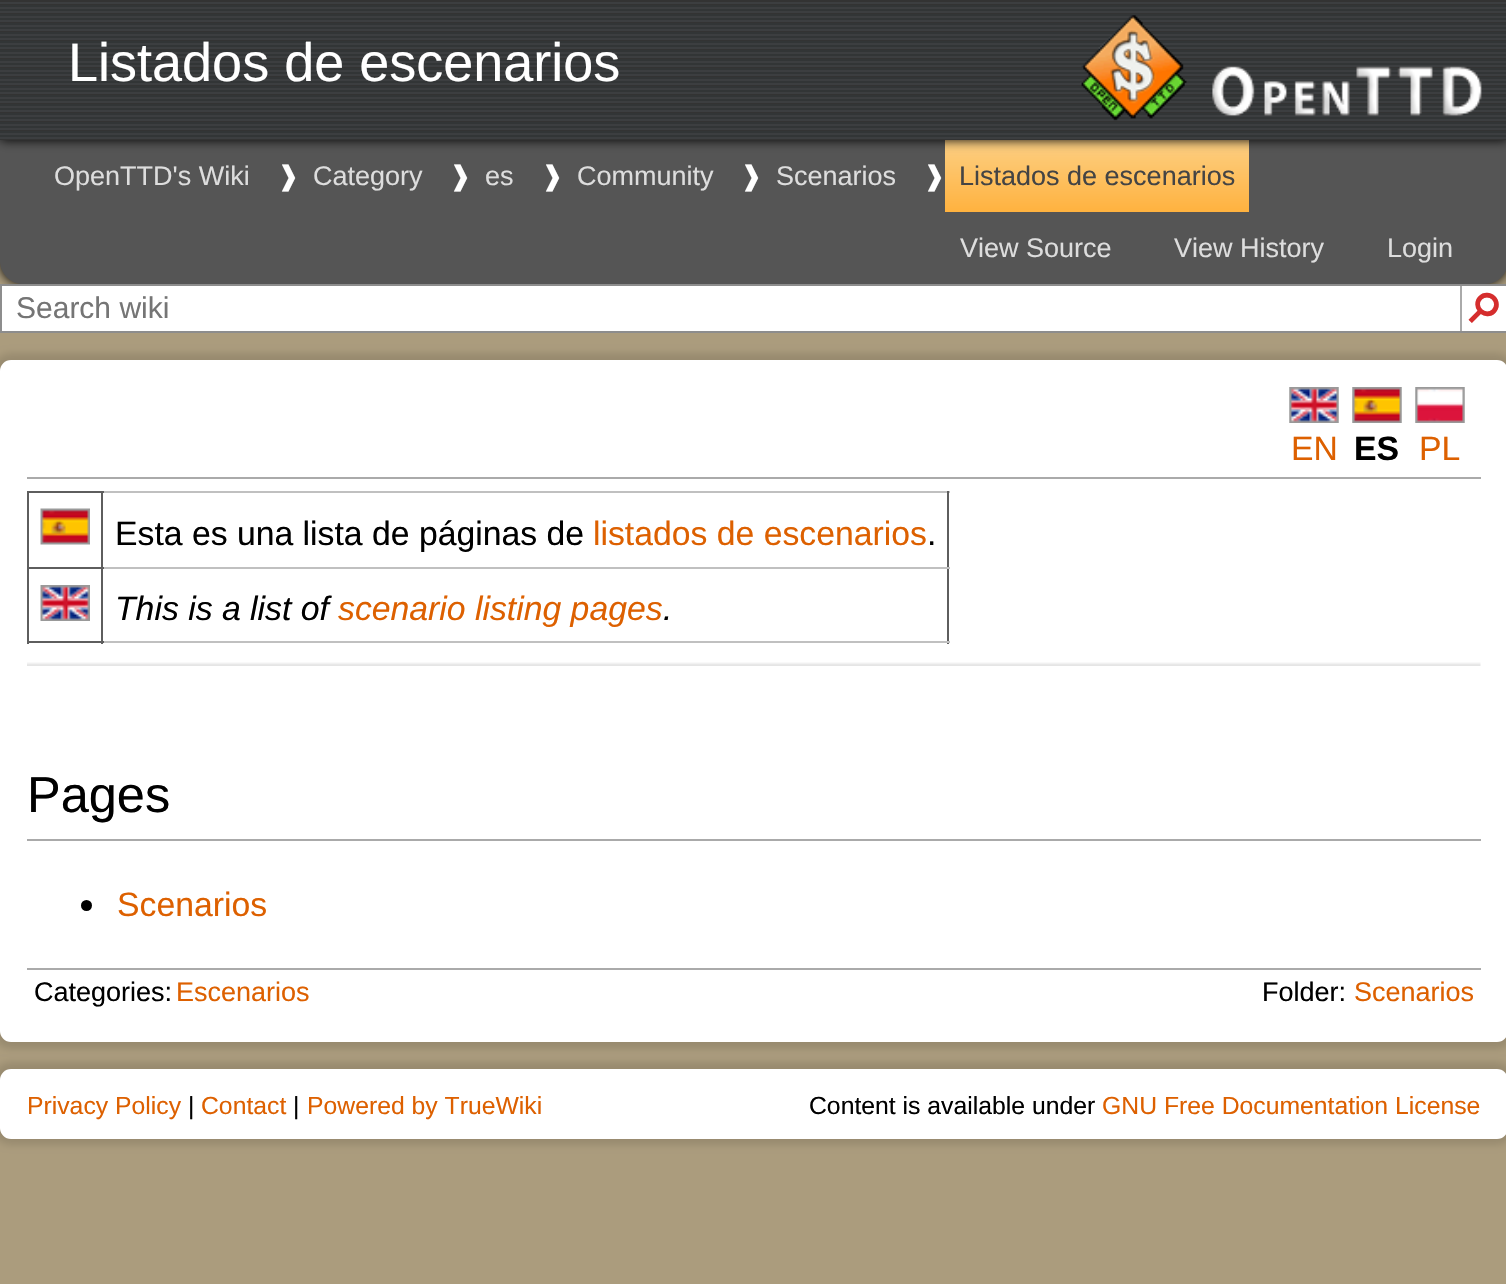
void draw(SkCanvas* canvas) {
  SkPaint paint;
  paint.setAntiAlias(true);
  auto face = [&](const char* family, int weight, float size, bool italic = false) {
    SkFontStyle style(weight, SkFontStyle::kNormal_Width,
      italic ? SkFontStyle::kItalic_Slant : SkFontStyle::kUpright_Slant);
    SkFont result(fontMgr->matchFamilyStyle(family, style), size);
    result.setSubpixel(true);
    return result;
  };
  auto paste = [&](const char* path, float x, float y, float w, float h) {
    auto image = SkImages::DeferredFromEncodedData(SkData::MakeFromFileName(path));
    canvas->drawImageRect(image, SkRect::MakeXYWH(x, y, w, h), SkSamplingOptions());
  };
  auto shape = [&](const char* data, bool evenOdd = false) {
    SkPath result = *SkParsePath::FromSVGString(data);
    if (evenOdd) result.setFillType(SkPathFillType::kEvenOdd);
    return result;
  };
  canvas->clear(0xffab9c7d);
  paint.setColor(0xff000000);
  paint.setMaskFilter(SkMaskFilter::MakeBlur(kNormal_SkBlurStyle, 5.5f));
  canvas->drawRoundRect(SkRect::MakeXYWH(0, 140, 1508, 144), 23, 23, paint);
  paint.setMaskFilter(nullptr);
  paint.setColor(0xff555555);
  canvas->drawPath(shape("M0 140H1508V261C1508 273.5 1497.5 284 1485 284H23C10.5 284 0 273.5 0 261Z"), paint);
  {
    const SkColor colors[] = {0xfffcd085, 0xffffb23f};
    const float stops[] = {0, 1};
    const SkPoint ends[] = {{1097, 139}, {1097, 212}};
    paint.setShader(SkGradientShader::MakeLinear(ends, colors, stops, 2, SkTileMode::kClamp));
    paint.setAlpha(255);
  }
  canvas->drawRect(SkRect::MakeXYWH(945, 140, 304, 72), paint);
  paint.setShader(nullptr);
  paint.setColor(0xff000000);
  paint.setMaskFilter(SkMaskFilter::MakeBlur(kNormal_SkBlurStyle, 5.5f));
  canvas->drawRect(SkRect::MakeXYWH(0, 0, 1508, 140), paint);
  paint.setMaskFilter(nullptr);
  paint.setColor(0xff333333);
  canvas->drawRect(SkRect::MakeXYWH(0, 0, 1506, 140), paint);
  paste("img/1.png", 0, 2, 1506, 137);
  paste("img/2.png", 1080, 15, 107, 106);
  paste("img/3.png", 1212, 66, 270, 50);
  paint.setColor(0xffffffff);
  canvas->drawRect(SkRect::MakeXYWH(1, 285, 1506, 47), paint);
  paint.setStroke(true);
  paint.setStrokeWidth(2);
  paint.setColor(0xff8d8d8d);
  canvas->drawRect(SkRect::MakeXYWH(1, 285, 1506, 47), paint);
  paint.setStroke(false);
  paint.setColor(0xffaaaaaa);
  canvas->drawRect(SkRect::MakeXYWH(1460, 286, 2, 45), paint);
  paint.setColor(0x1c000000);
  paint.setMaskFilter(SkMaskFilter::MakeBlur(kNormal_SkBlurStyle, 3.5f));
  canvas->drawRoundRect(SkRect::MakeXYWH(-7, 353, 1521, 696), 18, 18, paint);
  paint.setMaskFilter(nullptr);
  paint.setColor(0xffffffff);
  canvas->drawRoundRect(SkRect::MakeXYWH(0, 360, 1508, 682), 11, 11, paint);
  paint.setColor(0xffaaaaaa);
  canvas->drawRect(SkRect::MakeXYWH(27, 477, 1454, 2), paint);
  paste("img/4.png", 1289, 387, 50, 36);
  paste("img/5.png", 1352, 387, 50, 36);
  paste("img/6.png", 1415, 387, 50, 36);
  {
    const struct { float x, y, w, h; SkColor color; } items[] = {
      {101, 491, 849, 2, 0xffc0c0c0},
      {947, 567, 2, 77, 0xff5e5e5e},
      {947, 491, 2, 78, 0xff5e5e5e},
      {101, 641, 849, 2, 0xffc0c0c0},
      {101, 567, 2, 77, 0xff5e5e5e},
      {101, 567, 849, 2, 0xffc0c0c0},
      {101, 491, 2, 78, 0xff5e5e5e},
      {27, 491, 77, 2, 0xff5e5e5e},
      {27, 641, 77, 2, 0xff5e5e5e},
      {27, 567, 2, 77, 0xff5e5e5e},
      {27, 567, 77, 2, 0xff5e5e5e},
      {27, 491, 2, 78, 0xff5e5e5e},
    };
    for (auto [x, y, w, h, color] : items) {
      paint.setColor(color);
      canvas->drawRect(SkRect::MakeXYWH(x, y, w, h), paint);
    }
  }
  paste("img/7.png", 40, 508, 50, 37);
  paste("img/8.png", 40, 585, 50, 36);
  paste("img/9.png", 27, 662, 1454, 4);
  paint.setColor(0xffaaaaaa);
  canvas->drawRect(SkRect::MakeXYWH(27, 839, 1454, 2), paint);
  paint.setColor(0xff000000);
  canvas->drawCircle(86.5f, 905.5f, 5.5f, paint);
  paint.setColor(0xffaaaaaa);
  canvas->drawRect(SkRect::MakeXYWH(27, 968, 1454, 2), paint);
  paint.setColor(0x1c000000);
  paint.setMaskFilter(SkMaskFilter::MakeBlur(kNormal_SkBlurStyle, 3.5f));
  canvas->drawRoundRect(SkRect::MakeXYWH(-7, 1062, 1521, 83), 18, 18, paint);
  paint.setMaskFilter(nullptr);
  paint.setColor(0xffffffff);
  canvas->drawRoundRect(SkRect::MakeXYWH(0, 1069, 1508, 70), 11, 11, paint);
  auto f0 = face("Liberation Sans", 400, 54);
  canvas->drawString("Listados de escenarios", 68, 81, f0, paint);
  auto f1 = face("Liberation Sans", 400, 27);
  paint.setColor(0xffdddddd);
  canvas->drawString("OpenTTD's Wiki", 54, 185, f1, paint);
  auto f2 = face("DejaVu Sans", 400, 27);
  paint.setColor(0xffffffff);
  canvas->drawString("❱", 277, 185, f2, paint);
  paint.setColor(0xffdddddd);
  canvas->drawString("Category", 313, 185, f1, paint);
  paint.setColor(0xffffffff);
  canvas->drawString("❱", 449, 185, f2, paint);
  paint.setColor(0xffdddddd);
  canvas->drawString("es", 485, 185, f1, paint);
  paint.setColor(0xffffffff);
  canvas->drawString("❱", 541, 185, f2, paint);
  paint.setColor(0xffdddddd);
  canvas->drawString("Community", 577, 185, f1, paint);
  paint.setColor(0xffffffff);
  canvas->drawString("❱", 740, 185, f2, paint);
  paint.setColor(0xffdddddd);
  canvas->drawString("Scenarios", 776, 185, f1, paint);
  paint.setColor(0xffffffff);
  canvas->drawString("❱", 923, 185, f2, paint);
  paint.setColor(0xff444444);
  canvas->drawString("Listados de escenarios", 959, 185, f1, paint);
  paint.setColor(0xffdddddd);
  {
    const struct { const char* s; float x, y; } items[] = {
      {"View Source", 960, 257},
      {"View History", 1174, 257},
      {"Login", 1387, 257},
    };
    for (auto [s, x, y] : items) {
      canvas->drawString(s, x, y, f1, paint);
    }
  }
  auto f3 = face("Liberation Sans", 400, 30);
  paint.setColor(0xff757575);
  canvas->drawString("Search wiki", 16, 318, f3, paint);
  auto f4 = face("DejaVu Sans", 700, 40);
  paint.setColor(0xffd52d2d);
  canvas->save();
  canvas->rotate(45, 1463, 307);
  canvas->drawString("⚲", 1463, 307, f4, paint);
  canvas->restore();
  auto f5 = face("Liberation Sans", 400, 33.75f);
  paint.setColor(0xffdd6000);
  canvas->drawString("EN", 1291, 460, f5, paint);
  auto f6 = face("Liberation Sans", 700, 33.75f);
  paint.setColor(0xff000000);
  canvas->drawString("ES", 1354, 460, f6, paint);
  paint.setColor(0xffdd6000);
  canvas->drawString("PL", 1419, 460, f5, paint);
  paint.setColor(0xff000000);
  canvas->drawString("Esta es una lista de páginas de", 115, 545, f5, paint);
  paint.setColor(0xffdd6000);
  canvas->drawString("listados de escenarios", 593, 545, f5, paint);
  paint.setColor(0xff000000);
  canvas->drawString(".", 927, 545, f5, paint);
  auto f7 = face("Liberation Sans", 400, 33.75f, true);
  canvas->drawString("This is a list of", 115, 620, f7, paint);
  paint.setColor(0xffdd6000);
  canvas->drawString("scenario listing pages", 338, 620, f7, paint);
  paint.setColor(0xff000000);
  canvas->drawString(".", 663, 620, f7, paint);
  auto f8 = face("Liberation Sans", 400, 50.5f);
  canvas->drawString("Pages", 27, 812, f8, paint);
  paint.setColor(0xffdd6000);
  canvas->drawString("Scenarios", 117, 916, f5, paint);
  paint.setColor(0xff000000);
  canvas->drawString("Categories:", 34, 1001, f1, paint);
  paint.setColor(0xffdd6000);
  canvas->drawString("Escenarios", 176, 1001, f1, paint);
  paint.setColor(0xff000000);
  canvas->drawString("Folder:", 1262, 1001, f1, paint);
  paint.setColor(0xffdd6000);
  canvas->drawString("Scenarios", 1354, 1001, f1, paint);
  auto f9 = face("Liberation Sans", 400, 24.75f);
  canvas->drawString("Privacy Policy", 27, 1114, f9, paint);
  paint.setColor(0xff000000);
  canvas->drawString("|", 188, 1114, f9, paint);
  paint.setColor(0xffdd6000);
  canvas->drawString("Contact", 201, 1114, f9, paint);
  paint.setColor(0xff000000);
  canvas->drawString("|", 293, 1114, f9, paint);
  paint.setColor(0xffdd6000);
  canvas->drawString("Powered by TrueWiki", 307, 1114, f9, paint);
  paint.setColor(0xff000000);
  canvas->drawString("Content is available under", 809, 1114, f9, paint);
  paint.setColor(0xffdd6000);
  canvas->drawString("GNU Free Documentation License", 1102, 1114, f9, paint);
}
